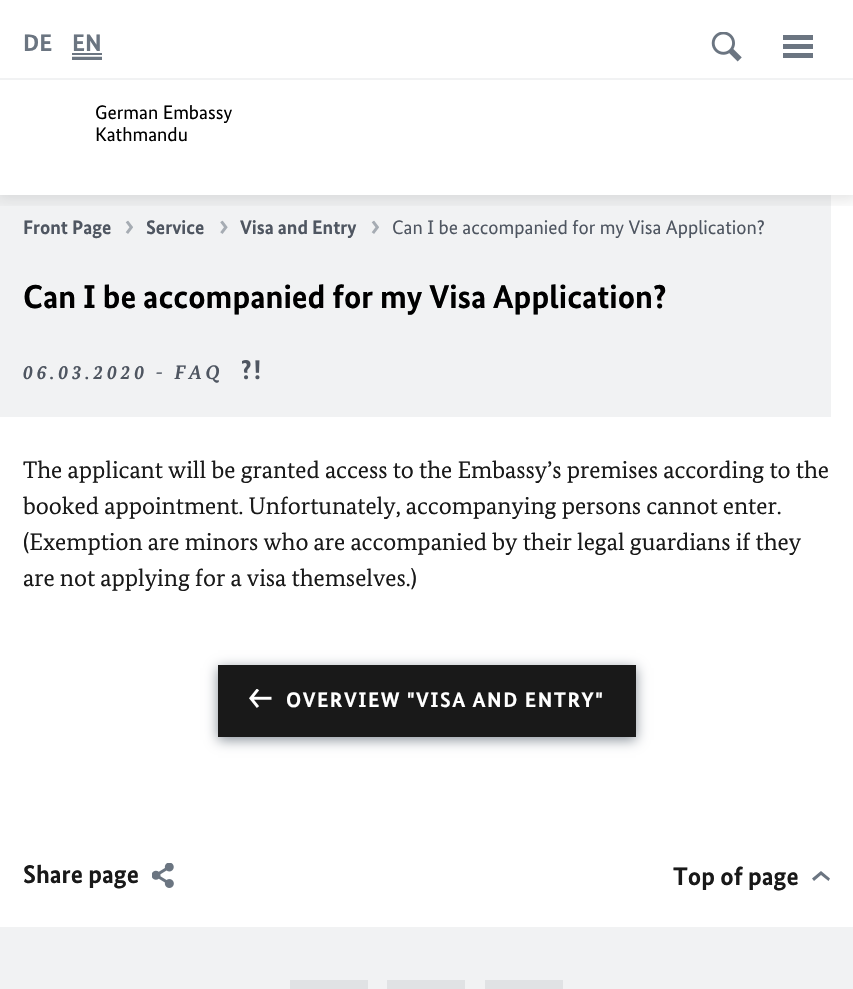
void draw(SkCanvas* canvas) {
  SkPaint paint;
  paint.setAntiAlias(true);
  auto face = [&](const char* family, int weight, float size, bool italic = false) {
    SkFontStyle style(weight, SkFontStyle::kNormal_Width,
      italic ? SkFontStyle::kItalic_Slant : SkFontStyle::kUpright_Slant);
    SkFont result(fontMgr->matchFamilyStyle(family, style), size);
    result.setSubpixel(true);
    return result;
  };
  auto writeSpaced = [&](const char* s, float x, float y, const SkFont& font, const SkPaint& ink, float letter, float word) {
    std::vector<SkGlyphID> glyphs(font.countText(s, strlen(s), SkTextEncoding::kUTF8));
    std::vector<float> xs(glyphs.size());
    font.textToGlyphs(s, strlen(s), SkTextEncoding::kUTF8, glyphs);
    font.getXPos(glyphs, xs, x);
    float extra = 0;
    for (size_t i = 0; i < glyphs.size(); i++) {
      xs[i] += extra;
      extra += letter + word * (glyphs[i] == font.unicharToGlyph(' '));
    }
    canvas->drawTextBlob(SkTextBlob::MakeFromPosHGlyphs(glyphs, xs, y, font), 0, 0, ink);
  };
  auto paste = [&](const char* path, float x, float y, float w, float h) {
    auto image = SkImages::DeferredFromEncodedData(SkData::MakeFromFileName(path));
    canvas->drawImageRect(image, SkRect::MakeXYWH(x, y, w, h), SkSamplingOptions());
  };
  auto shape = [&](const char* data, bool evenOdd = false) {
    SkPath result = *SkParsePath::FromSVGString(data);
    if (evenOdd) result.setFillType(SkPathFillType::kEvenOdd);
    return result;
  };
  canvas->clear(0xffffffff);
  paint.setColor(0xfff1f2f3);
  canvas->drawRect(SkRect::MakeXYWH(0, 195, 831, 222), paint);
  canvas->save();
  canvas->clipRect(SkRect::MakeXYWH(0, 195, 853, 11));
  paint.setColor(0x1a000000);
  paint.setMaskFilter(SkMaskFilter::MakeBlur(kNormal_SkBlurStyle, 7));
  canvas->drawRect(SkRect::MakeXYWH(-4, -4, 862, 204), paint);
  paint.setMaskFilter(nullptr);
  canvas->restore();
  {
    const struct { float x, y, w, h; SkColor color; } items[] = {
      {72, 53, 30, 2, 0xff6b7581},
      {72, 56, 30, 1, 0xffdadde0},
      {72, 57, 30, 3, 0xff6b7581},
    };
    for (auto [x, y, w, h, color] : items) {
      paint.setColor(color);
      canvas->drawRect(SkRect::MakeXYWH(x, y, w, h), paint);
    }
  }
  paste("img/1.png", 711, 32, 31, 30);
  {
    const struct { float x, y, w, h; SkColor color; } items[] = {
      {783, 44, 30, 5, 0xff6b7581},
      {783, 35, 30, 5, 0xff6b7581},
      {783, 53, 30, 5, 0xff6b7581},
      {0, 78, 853, 2, 0xfff1f2f3},
    };
    for (auto [x, y, w, h, color] : items) {
      paint.setColor(color);
      canvas->drawRect(SkRect::MakeXYWH(x, y, w, h), paint);
    }
  }
  paste("img/2.png", 125, 220, 8, 14);
  paste("img/3.png", 220, 220, 8, 14);
  paste("img/2.png", 371, 220, 8, 14);
  paste("img/4.png", 242, 360, 18, 20);
  paint.setColor(0xff89919a);
  paint.setMaskFilter(SkMaskFilter::MakeBlur(kNormal_SkBlurStyle, 6));
  canvas->drawRect(SkRect::MakeXYWH(218, 668, 418, 72), paint);
  paint.setMaskFilter(nullptr);
  paint.setColor(0xff191919);
  canvas->drawRect(SkRect::MakeXYWH(218, 665, 418, 72), paint);
  paste("img/5.png", 249, 689, 23, 19);
  paste("img/6.png", 152, 863, 22, 25);
  paint.setColor(0xff6b7581);
  canvas->drawPath(shape("M821 875L828.5 881L830 878.5L821 871L812 878.5L814 881"), paint);
  {
    const struct { float x, y, w, h; SkColor color; } items[] = {
      {0, 927, 853, 62, 0xfff1f2f3},
      {290, 980, 78, 9, 0xffe0e2e4},
      {387, 980, 78, 9, 0xffe0e2e4},
      {485, 980, 78, 9, 0xffe0e2e4},
    };
    for (auto [x, y, w, h, color] : items) {
      paint.setColor(color);
      canvas->drawRect(SkRect::MakeXYWH(x, y, w, h), paint);
    }
  }
  auto f0 = face("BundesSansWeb", 700, 24);
  paint.setColor(0xff6b7581);
  canvas->drawString("DE", 23, 51, f0, paint);
  canvas->drawString("EN", 72, 51, f0, paint);
  auto f1 = face("BundesSansWeb", 400, 19.5f);
  paint.setColor(0xff000000);
  canvas->drawString("German Embassy", 95, 119, f1, paint);
  canvas->drawString("Kathmandu", 95, 141, f1, paint);
  auto f2 = face("BundesSansWeb", 700, 19.5f);
  paint.setColor(0xff4f5661);
  {
    const struct { const char* s; float x, y; } items[] = {
      {"Front Page", 23, 234},
      {"Service", 146, 234},
      {"Visa and Entry", 240, 234},
    };
    for (auto [s, x, y] : items) {
      canvas->drawString(s, x, y, f2, paint);
    }
  }
  canvas->drawString("Can I be accompanied for my Visa Application?", 392, 234, f1, paint);
  auto f3 = face("BundesSansWeb", 700, 33);
  paint.setColor(0xff000000);
  canvas->drawString("Can I be accompanied for my Visa Application?", 23, 308, f3, paint);
  auto f4 = face("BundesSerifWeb", 700, 19.5f, true);
  paint.setColor(0xff4f5661);
  writeSpaced("06.03.2020 - FAQ", 23, 379, f4, paint, 3.9f, 0);
  auto f5 = face("BundesSerifWeb", 400, 24);
  paint.setColor(0xff191919);
  {
    const struct { const char* s; float x, y; } items[] = {
      {"The applicant will be granted access to the Embassy’s premises according to the", 23, 478},
      {"booked appointment. Unfortunately, accompanying persons cannot enter.", 23, 514},
      {"(Exemption are minors who are accompanied by their legal guardians if they", 23, 550},
      {"are not applying for a visa themselves.)", 23, 586},
    };
    for (auto [s, x, y] : items) {
      canvas->drawString(s, x, y, f5, paint);
    }
  }
  auto f6 = face("BundesSansWeb", 700, 21);
  paint.setColor(0xffffffff);
  writeSpaced("OVERVIEW \"VISA AND ENTRY\"", 286, 707, f6, paint, 1.5f, 0);
  auto f7 = face("BundesSansWeb", 700, 25.5f);
  paint.setColor(0xff191919);
  canvas->drawString("Share page", 23, 883, f7, paint);
  canvas->drawString("Top of page", 673, 885, f7, paint);
}
